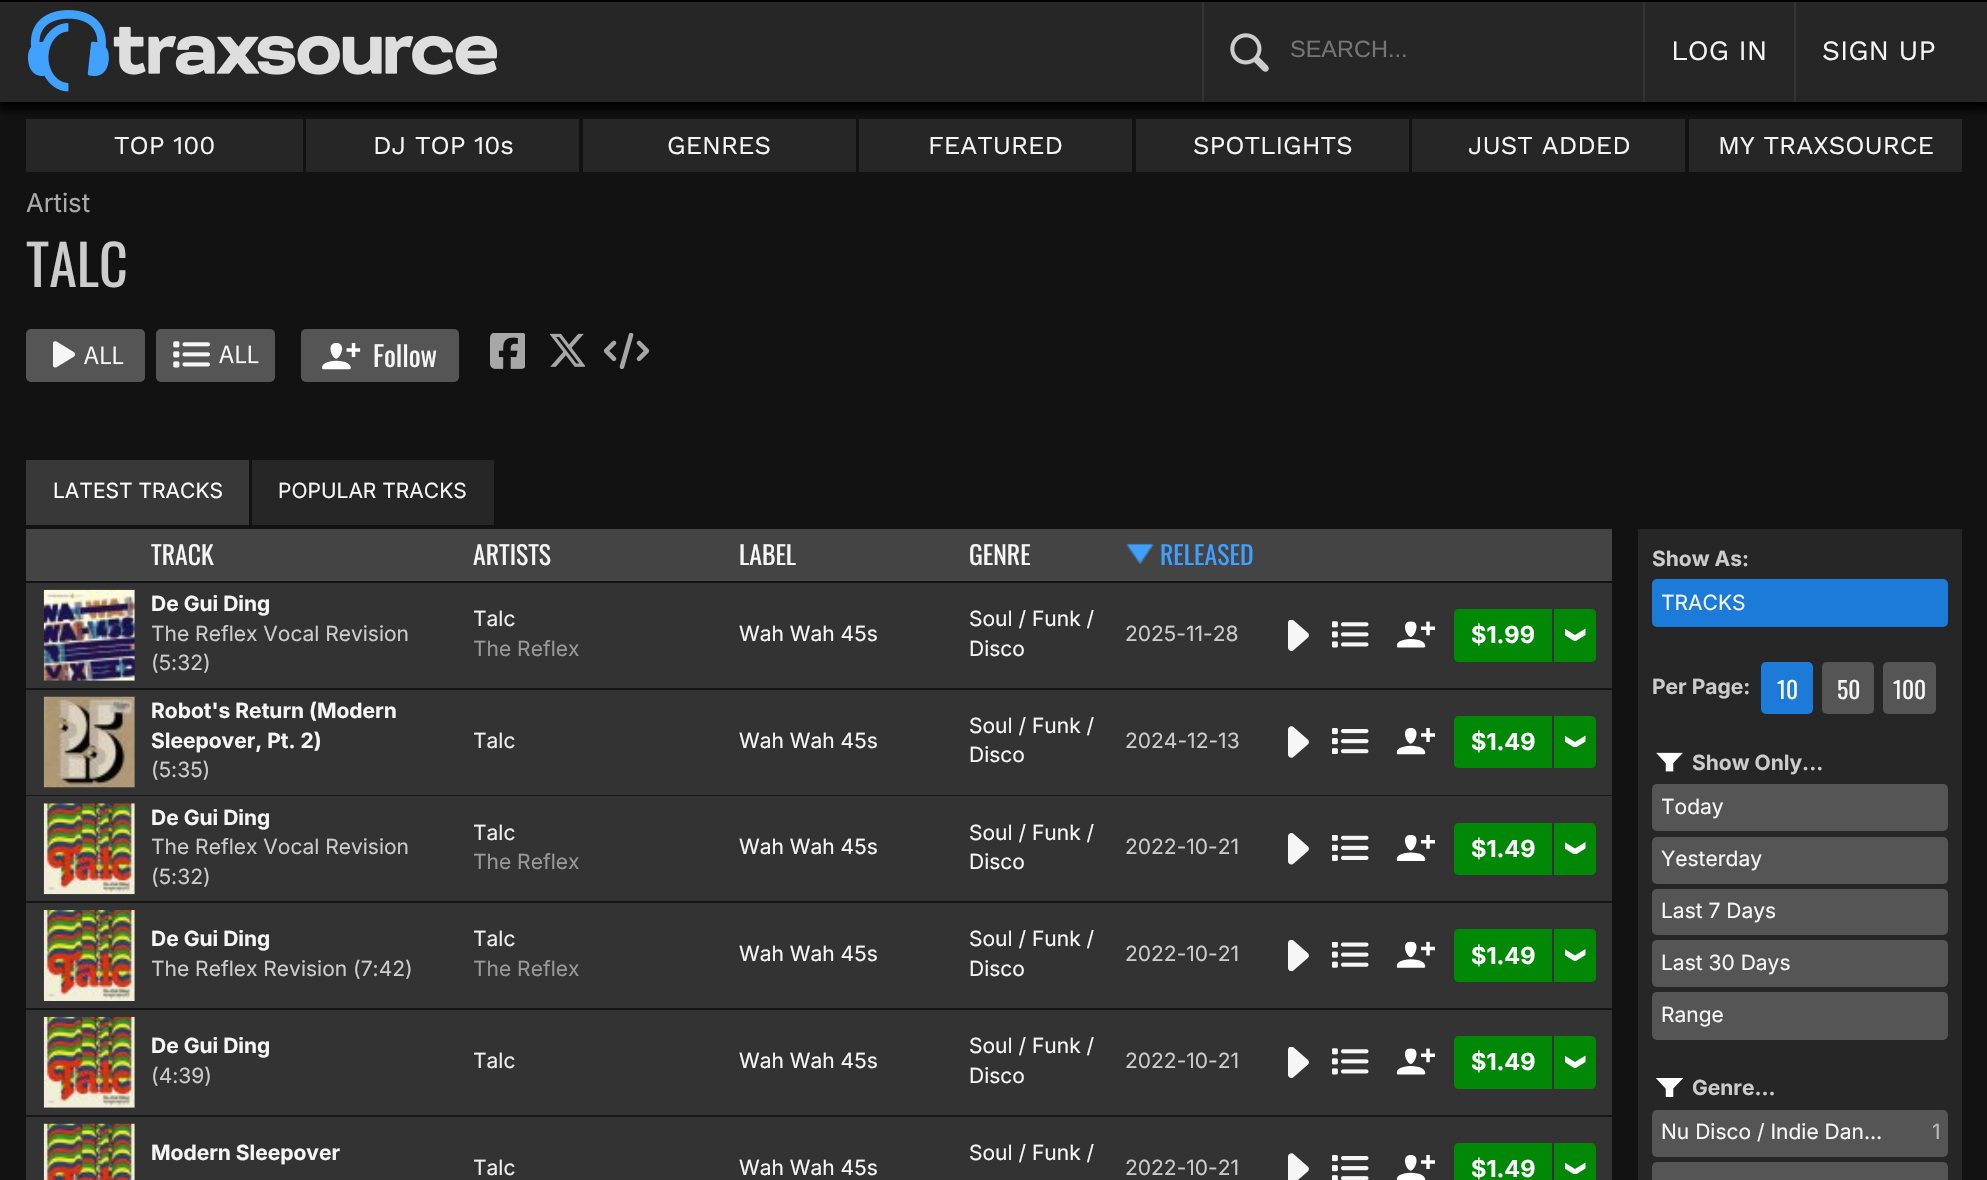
void draw(SkCanvas* canvas) {
  SkPaint paint;
  paint.setAntiAlias(true);
  auto face = [&](const char* family, int weight, float size, bool italic = false) {
    SkFontStyle style(weight, SkFontStyle::kNormal_Width,
      italic ? SkFontStyle::kItalic_Slant : SkFontStyle::kUpright_Slant);
    SkFont result(fontMgr->matchFamilyStyle(family, style), size);
    result.setSubpixel(true);
    return result;
  };
  auto paste = [&](const char* path, float x, float y, float w, float h) {
    auto image = SkImages::DeferredFromEncodedData(SkData::MakeFromFileName(path));
    canvas->drawImageRect(image, SkRect::MakeXYWH(x, y, w, h), SkSamplingOptions());
  };
  auto shape = [&](const char* data, bool evenOdd = false) {
    SkPath result = *SkParsePath::FromSVGString(data);
    if (evenOdd) result.setFillType(SkPathFillType::kEvenOdd);
    return result;
  };
  canvas->clear(0xff121212);
  {
    const struct { float x, y, w, h; SkColor color; } items[] = {
      {26, 119, 277, 53, 0xff262626},
      {306, 119, 273, 53, 0xff262626},
      {583, 119, 273, 53, 0xff262626},
      {859, 119, 273, 53, 0xff262626},
      {1136, 119, 273, 53, 0xff262626},
      {1412, 119, 273, 53, 0xff262626},
      {1689, 119, 273, 53, 0xff262626},
    };
    for (auto [x, y, w, h, color] : items) {
      paint.setColor(color);
      canvas->drawRect(SkRect::MakeXYWH(x, y, w, h), paint);
    }
  }
  paint.setColor(0xff000000);
  paint.setMaskFilter(SkMaskFilter::MakeBlur(kNormal_SkBlurStyle, 4.5f));
  canvas->drawRect(SkRect::MakeXYWH(-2, 5, 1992, 105), paint);
  paint.setMaskFilter(nullptr);
  {
    const struct { float x, y, w, h; SkColor color; } items[] = {
      {0, 2, 1987, 100, 0xff262626},
      {1202, 0, 2, 102, 0xff333333},
      {1643, 0, 2, 102, 0xff333333},
      {1794, 0, 2, 102, 0xff333333},
      {0, 0, 1987, 2, 0xff000000},
    };
    for (auto [x, y, w, h, color] : items) {
      paint.setColor(color);
      canvas->drawRect(SkRect::MakeXYWH(x, y, w, h), paint);
    }
  }
  paste("img/1.png", 27, 10, 471, 82);
  paste("img/2.png", 1230, 33, 39, 39);
  paint.setColor(0xff555555);
  canvas->drawRoundRect(SkRect::MakeXYWH(26, 329, 119, 53), 5, 5, paint);
  paste("img/3.png", 53, 341, 71, 27);
  canvas->drawRoundRect(SkRect::MakeXYWH(156, 329, 119, 53), 5, 5, paint);
  paste("img/4.png", 173, 341, 86, 27);
  canvas->drawRoundRect(SkRect::MakeXYWH(301, 329, 158, 53), 5, 5, paint);
  paste("img/5.png", 322, 343, 39, 27);
  paste("img/6.png", 490, 333, 35, 36);
  paste("img/7.png", 550, 333, 35, 34);
  paste("img/8.png", 604, 333, 45, 36);
  {
    const struct { float x, y, w, h; SkColor color; } items[] = {
      {26, 460, 223, 65, 0xff383838},
      {252, 460, 242, 65, 0xff262626},
      {26, 529, 1586, 52, 0xff444444},
    };
    for (auto [x, y, w, h, color] : items) {
      paint.setColor(color);
      canvas->drawRect(SkRect::MakeXYWH(x, y, w, h), paint);
    }
  }
  paste("img/9.png", 1126, 543, 28, 21);
  paint.setColor(0xff333333);
  canvas->drawRect(SkRect::MakeXYWH(26, 583, 1586, 105), paint);
  paint.setColor(0xff161616);
  canvas->drawRect(SkRect::MakeXYWH(26, 688, 1586, 2), paint);
  paste("img/10.png", 43, 589, 92, 92);
  paste("img/11.png", 1288, 620, 21, 31);
  paste("img/12.png", 1332, 621, 37, 27);
  paste("img/13.png", 1396, 621, 39, 27);
  paint.setColor(0xff008806);
  canvas->drawPath(shape("M1459 609H1552V662H1459C1456 662 1454 660 1454 657V614C1454 611 1456 609 1459 609Z"), paint);
  canvas->drawPath(shape("M1554 609H1591C1594 609 1596 611 1596 614V657C1596 660 1594 662 1591 662H1554Z"), paint);
  canvas->save();
  canvas->clipRect(SkRect::MakeXYWH(1565, 628, 21, 13));
  paint.setColor(0xffffffff);
  canvas->drawPath(shape("M1564.5 628.5V635L1575 641.5L1585.5 635V628.5L1575 635Z"), paint);
  canvas->restore();
  paint.setColor(0xff333333);
  canvas->drawRect(SkRect::MakeXYWH(26, 690, 1586, 105), paint);
  paint.setColor(0xff161616);
  canvas->drawRect(SkRect::MakeXYWH(26, 795, 1586, 1), paint);
  paste("img/14.png", 43, 696, 92, 92);
  paste("img/15.png", 1288, 726, 21, 32);
  paste("img/16.png", 1332, 728, 37, 26);
  paste("img/17.png", 1396, 728, 39, 27);
  paint.setColor(0xff008806);
  canvas->drawPath(shape("M1459 716H1552V768H1459C1456 768 1454 766 1454 763V721C1454 718 1456 716 1459 716Z"), paint);
  canvas->drawPath(shape("M1554 716H1591C1594 716 1596 718 1596 721V763C1596 766 1594 768 1591 768H1554Z"), paint);
  canvas->save();
  canvas->clipRect(SkRect::MakeXYWH(1565, 735, 21, 12));
  paint.setColor(0xffffffff);
  canvas->drawPath(shape("M1564.5 735.5V741.5L1575 748L1585.5 741.5V735.5L1575 742Z"), paint);
  canvas->restore();
  paint.setColor(0xff333333);
  canvas->drawRect(SkRect::MakeXYWH(26, 796, 1586, 105), paint);
  paint.setColor(0xff161616);
  canvas->drawRect(SkRect::MakeXYWH(26, 901, 1586, 2), paint);
  paste("img/18.png", 43, 803, 92, 92);
  paste("img/19.png", 1288, 833, 21, 32);
  paste("img/20.png", 1332, 835, 37, 26);
  paste("img/21.png", 1396, 835, 39, 26);
  paint.setColor(0xff008806);
  canvas->drawPath(shape("M1459 823H1552V875H1459C1456 875 1454 873 1454 870V828C1454 825 1456 823 1459 823Z"), paint);
  canvas->drawPath(shape("M1554 823H1591C1594 823 1596 825 1596 828V870C1596 873 1594 875 1591 875H1554Z"), paint);
  canvas->save();
  canvas->clipRect(SkRect::MakeXYWH(1565, 842, 21, 12));
  paint.setColor(0xffffffff);
  canvas->drawPath(shape("M1564.5 842V848.5L1575 855L1585.5 848.5V842L1575 848.5Z"), paint);
  canvas->restore();
  paint.setColor(0xff333333);
  canvas->drawRect(SkRect::MakeXYWH(26, 903, 1586, 105), paint);
  paint.setColor(0xff161616);
  canvas->drawRect(SkRect::MakeXYWH(26, 1008, 1586, 2), paint);
  paste("img/22.png", 43, 910, 92, 91);
  paste("img/23.png", 1288, 940, 21, 31);
  paste("img/24.png", 1332, 942, 37, 26);
  paste("img/25.png", 1396, 941, 39, 27);
  paint.setColor(0xff008806);
  canvas->drawPath(shape("M1459 929H1552V982H1459C1456 982 1454 980 1454 977V934C1454 931 1456 929 1459 929Z"), paint);
  canvas->drawPath(shape("M1554 929H1591C1594 929 1596 931 1596 934V977C1596 980 1594 982 1591 982H1554Z"), paint);
  canvas->save();
  canvas->clipRect(SkRect::MakeXYWH(1565, 949, 21, 12));
  paint.setColor(0xffffffff);
  canvas->drawPath(shape("M1564.5 949V955L1575 961.5L1585.5 955V949L1575 955.5Z"), paint);
  canvas->restore();
  paint.setColor(0xff333333);
  canvas->drawRect(SkRect::MakeXYWH(26, 1010, 1586, 105), paint);
  paint.setColor(0xff161616);
  canvas->drawRect(SkRect::MakeXYWH(26, 1115, 1586, 2), paint);
  paste("img/26.png", 43, 1016, 92, 92);
  paste("img/11.png", 1288, 1047, 21, 31);
  paste("img/12.png", 1332, 1048, 37, 27);
  paste("img/13.png", 1396, 1048, 39, 27);
  paint.setColor(0xff008806);
  canvas->drawPath(shape("M1459 1036H1552V1089H1459C1456 1089 1454 1087 1454 1084V1041C1454 1038 1456 1036 1459 1036Z"), paint);
  canvas->drawPath(shape("M1554 1036H1591C1594 1036 1596 1038 1596 1041V1084C1596 1087 1594 1089 1591 1089H1554Z"), paint);
  canvas->save();
  canvas->clipRect(SkRect::MakeXYWH(1565, 1055, 21, 13));
  paint.setColor(0xffffffff);
  canvas->drawPath(shape("M1564.5 1055.5V1062L1575 1068.5L1585.5 1062V1055.5L1575 1062Z"), paint);
  canvas->restore();
  paint.setColor(0xff333333);
  canvas->drawRect(SkRect::MakeXYWH(26, 1117, 1586, 63), paint);
  paste("img/27.png", 43, 1123, 92, 57);
  paste("img/28.png", 1288, 1153, 21, 27);
  paste("img/29.png", 1332, 1155, 37, 25);
  paste("img/30.png", 1396, 1155, 39, 25);
  paint.setColor(0xff008806);
  canvas->drawPath(shape("M1459 1143H1552V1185H1459C1456 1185 1454 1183 1454 1180V1148C1454 1145 1456 1143 1459 1143Z"), paint);
  canvas->drawPath(shape("M1554 1143H1591C1594 1143 1596 1145 1596 1148V1180C1596 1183 1594 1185 1591 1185H1554Z"), paint);
  canvas->save();
  canvas->clipRect(SkRect::MakeXYWH(1565, 1162, 21, 12));
  paint.setColor(0xffffffff);
  canvas->drawPath(shape("M1564.5 1162.5V1168.5L1575 1175L1585.5 1168.5V1162.5L1575 1169Z"), paint);
  canvas->restore();
  paint.setColor(0xff262626);
  canvas->drawRect(SkRect::MakeXYWH(1638, 529, 324, 651), paint);
  paint.setColor(0xff1c7ad8);
  canvas->drawRoundRect(SkRect::MakeXYWH(1652, 579, 296, 48), 5, 5, paint);
  canvas->drawRoundRect(SkRect::MakeXYWH(1761, 662, 52, 52), 5, 5, paint);
  paint.setColor(0xff555555);
  canvas->drawRoundRect(SkRect::MakeXYWH(1822, 662, 52, 52), 5, 5, paint);
  canvas->drawRoundRect(SkRect::MakeXYWH(1883, 662, 53, 52), 5, 5, paint);
  paste("img/31.png", 1656, 752, 27, 20);
  canvas->drawRoundRect(SkRect::MakeXYWH(1652, 784, 296, 47), 5, 5, paint);
  canvas->drawRoundRect(SkRect::MakeXYWH(1652, 837, 296, 47), 5, 5, paint);
  canvas->drawRoundRect(SkRect::MakeXYWH(1652, 889, 296, 46), 5, 5, paint);
  canvas->drawRoundRect(SkRect::MakeXYWH(1652, 940, 296, 47), 5, 5, paint);
  canvas->drawRoundRect(SkRect::MakeXYWH(1652, 992, 296, 48), 5, 5, paint);
  paste("img/32.png", 1656, 1078, 28, 19);
  canvas->drawRoundRect(SkRect::MakeXYWH(1652, 1110, 296, 47), 5, 5, paint);
  canvas->drawRoundRect(SkRect::MakeXYWH(1652, 1162, 296, 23), 5, 5, paint);
  auto f0 = face("Liberation Sans", 400, 23.5f);
  paint.setColor(0xff757575);
  canvas->drawString("SEARCH...", 1290, 57, f0, paint);
  auto f1 = face("Work Sans", 400, 28);
  paint.setColor(0xfff6f6f6);
  canvas->drawString("LOG IN", 1671, 60, f1, paint);
  canvas->drawString("SIGN UP", 1822, 60, f1, paint);
  auto f2 = face("Work Sans", 400, 25.75f);
  {
    const struct { const char* s; float x, y; } items[] = {
      {"TOP 100", 114, 154},
      {"DJ TOP 10s", 373, 154},
      {"GENRES", 667, 154},
      {"FEATURED", 928, 154},
      {"SPOTLIGHTS", 1193, 154},
      {"JUST ADDED", 1468, 154},
      {"MY TRAXSOURCE", 1718, 154},
    };
    for (auto [s, x, y] : items) {
      canvas->drawString(s, x, y, f2, paint);
    }
  }
  auto f3 = face("Inter", 400, 25.75f);
  paint.setColor(0xffaaaaaa);
  canvas->drawString("Artist", 26, 212, f3, paint);
  auto f4 = face("Oswald", 400, 56);
  paint.setColor(0xffcccccc);
  canvas->drawString("TALC", 26, 287, f4, paint);
  auto f5 = face("Oswald", 400, 28);
  paint.setColor(0xfff6f6f6);
  canvas->drawString("Follow", 373, 367, f5, paint);
  auto f6 = face("Inter", 400, 21);
  paint.setColor(0xffffffff);
  canvas->drawString("LATEST TRACKS", 53, 498, f6, paint);
  paint.setColor(0xfff6f6f6);
  canvas->drawString("POPULAR TRACKS", 278, 498, f6, paint);
  auto f7 = face("Oswald", 400, 25.75f);
  {
    const struct { const char* s; float x, y; } items[] = {
      {"TRACK", 151, 565},
      {"ARTISTS", 473, 565},
      {"LABEL", 739, 565},
      {"GENRE", 969, 565},
    };
    for (auto [s, x, y] : items) {
      canvas->drawString(s, x, y, f7, paint);
    }
  }
  paint.setColor(0xff40a0ff);
  canvas->drawString("RELEASED", 1160, 565, f7, paint);
  auto f8 = face("Inter", 700, 21);
  paint.setColor(0xfff6f6f6);
  canvas->drawString("De Gui Ding", 151, 611, f8, paint);
  paint.setColor(0xffcccccc);
  canvas->drawString("The Reflex Vocal Revision", 151, 641, f6, paint);
  canvas->drawString("(5:32)", 151, 670, f6, paint);
  paint.setColor(0xffeeeeee);
  canvas->drawString("Talc", 473, 626, f6, paint);
  paint.setColor(0xff999999);
  canvas->drawString("The Reflex", 473, 656, f6, paint);
  paint.setColor(0xfff6f6f6);
  {
    const struct { const char* s; float x, y; } items[] = {
      {"Wah Wah 45s", 739, 641},
      {"Soul / Funk /", 969, 626},
      {"Disco", 969, 656},
    };
    for (auto [s, x, y] : items) {
      canvas->drawString(s, x, y, f6, paint);
    }
  }
  paint.setColor(0xffcccccc);
  canvas->drawString("2025-11-28", 1125, 641, f6, paint);
  auto f9 = face("Inter", 700, 23.5f);
  paint.setColor(0xffffffff);
  canvas->drawString("$1.99", 1471, 643, f9, paint);
  paint.setColor(0xfff6f6f6);
  canvas->drawString("Robot's Return (Modern", 151, 718, f8, paint);
  canvas->drawString("Sleepover, Pt. 2)", 151, 748, f8, paint);
  paint.setColor(0xffcccccc);
  canvas->drawString("(5:35)", 151, 777, f6, paint);
  paint.setColor(0xffeeeeee);
  canvas->drawString("Talc", 473, 748, f6, paint);
  paint.setColor(0xfff6f6f6);
  {
    const struct { const char* s; float x, y; } items[] = {
      {"Wah Wah 45s", 739, 748},
      {"Soul / Funk /", 969, 733},
      {"Disco", 969, 762},
    };
    for (auto [s, x, y] : items) {
      canvas->drawString(s, x, y, f6, paint);
    }
  }
  paint.setColor(0xffcccccc);
  canvas->drawString("2024-12-13", 1125, 748, f6, paint);
  paint.setColor(0xffffffff);
  canvas->drawString("$1.49", 1471, 750, f9, paint);
  paint.setColor(0xfff6f6f6);
  canvas->drawString("De Gui Ding", 151, 825, f8, paint);
  paint.setColor(0xffcccccc);
  canvas->drawString("The Reflex Vocal Revision", 151, 854, f6, paint);
  canvas->drawString("(5:32)", 151, 884, f6, paint);
  paint.setColor(0xffeeeeee);
  canvas->drawString("Talc", 473, 840, f6, paint);
  paint.setColor(0xff999999);
  canvas->drawString("The Reflex", 473, 869, f6, paint);
  paint.setColor(0xfff6f6f6);
  {
    const struct { const char* s; float x, y; } items[] = {
      {"Wah Wah 45s", 739, 854},
      {"Soul / Funk /", 969, 840},
      {"Disco", 969, 869},
    };
    for (auto [s, x, y] : items) {
      canvas->drawString(s, x, y, f6, paint);
    }
  }
  paint.setColor(0xffcccccc);
  canvas->drawString("2022-10-21", 1125, 854, f6, paint);
  paint.setColor(0xffffffff);
  canvas->drawString("$1.49", 1471, 857, f9, paint);
  paint.setColor(0xfff6f6f6);
  canvas->drawString("De Gui Ding", 151, 946, f8, paint);
  paint.setColor(0xffcccccc);
  canvas->drawString("The Reflex Revision (7:42)", 151, 976, f6, paint);
  paint.setColor(0xffeeeeee);
  canvas->drawString("Talc", 473, 946, f6, paint);
  paint.setColor(0xff999999);
  canvas->drawString("The Reflex", 473, 976, f6, paint);
  paint.setColor(0xfff6f6f6);
  {
    const struct { const char* s; float x, y; } items[] = {
      {"Wah Wah 45s", 739, 961},
      {"Soul / Funk /", 969, 946},
      {"Disco", 969, 976},
    };
    for (auto [s, x, y] : items) {
      canvas->drawString(s, x, y, f6, paint);
    }
  }
  paint.setColor(0xffcccccc);
  canvas->drawString("2022-10-21", 1125, 961, f6, paint);
  paint.setColor(0xffffffff);
  canvas->drawString("$1.49", 1471, 964, f9, paint);
  paint.setColor(0xfff6f6f6);
  canvas->drawString("De Gui Ding", 151, 1053, f8, paint);
  paint.setColor(0xffcccccc);
  canvas->drawString("(4:39)", 151, 1083, f6, paint);
  paint.setColor(0xffeeeeee);
  canvas->drawString("Talc", 473, 1068, f6, paint);
  paint.setColor(0xfff6f6f6);
  {
    const struct { const char* s; float x, y; } items[] = {
      {"Wah Wah 45s", 739, 1068},
      {"Soul / Funk /", 969, 1053},
      {"Disco", 969, 1083},
    };
    for (auto [s, x, y] : items) {
      canvas->drawString(s, x, y, f6, paint);
    }
  }
  paint.setColor(0xffcccccc);
  canvas->drawString("2022-10-21", 1125, 1068, f6, paint);
  paint.setColor(0xffffffff);
  canvas->drawString("$1.49", 1471, 1070, f9, paint);
  paint.setColor(0xfff6f6f6);
  canvas->drawString("Modern Sleepover", 151, 1160, f8, paint);
  canvas->drawString("Soul / Funk /", 969, 1160, f6, paint);
  paint.setColor(0xffeeeeee);
  canvas->drawString("Talc", 473, 1175, f6, paint);
  paint.setColor(0xfff6f6f6);
  canvas->drawString("Wah Wah 45s", 739, 1175, f6, paint);
  paint.setColor(0xffcccccc);
  canvas->drawString("2022-10-21", 1125, 1175, f6, paint);
  paint.setColor(0xffffffff);
  canvas->drawString("$1.49", 1471, 1177, f9, paint);
  paint.setColor(0xffcccccc);
  canvas->drawString("Show As:", 1652, 566, f8, paint);
  paint.setColor(0xfff6f6f6);
  canvas->drawString("TRACKS", 1661, 610, f6, paint);
  paint.setColor(0xffcccccc);
  canvas->drawString("Per Page:", 1652, 694, f8, paint);
  auto f10 = face("Oswald", 400, 23.5f);
  paint.setColor(0xfff6f6f6);
  {
    const struct { const char* s; float x, y; } items[] = {
      {"10", 1777, 699},
      {"50", 1837, 699},
      {"100", 1893, 699},
    };
    for (auto [s, x, y] : items) {
      canvas->drawString(s, x, y, f10, paint);
    }
  }
  paint.setColor(0xffcccccc);
  canvas->drawString("Show Only...", 1692, 770, f8, paint);
  paint.setColor(0xfff6f6f6);
  {
    const struct { const char* s; float x, y; } items[] = {
      {"Today", 1661, 814},
      {"Yesterday", 1661, 866},
      {"Last 7 Days", 1661, 918},
      {"Last 30 Days", 1661, 970},
      {"Range", 1661, 1022},
    };
    for (auto [s, x, y] : items) {
      canvas->drawString(s, x, y, f6, paint);
    }
  }
  paint.setColor(0xffcccccc);
  canvas->drawString("Genre...", 1692, 1095, f8, paint);
  paint.setColor(0xfff6f6f6);
  canvas->drawString("Nu Disco / Indie Dan…", 1661, 1139, f6, paint);
  paint.setColor(0xffbbbbbb);
  canvas->drawString("1", 1932, 1139, f6, paint);
}
